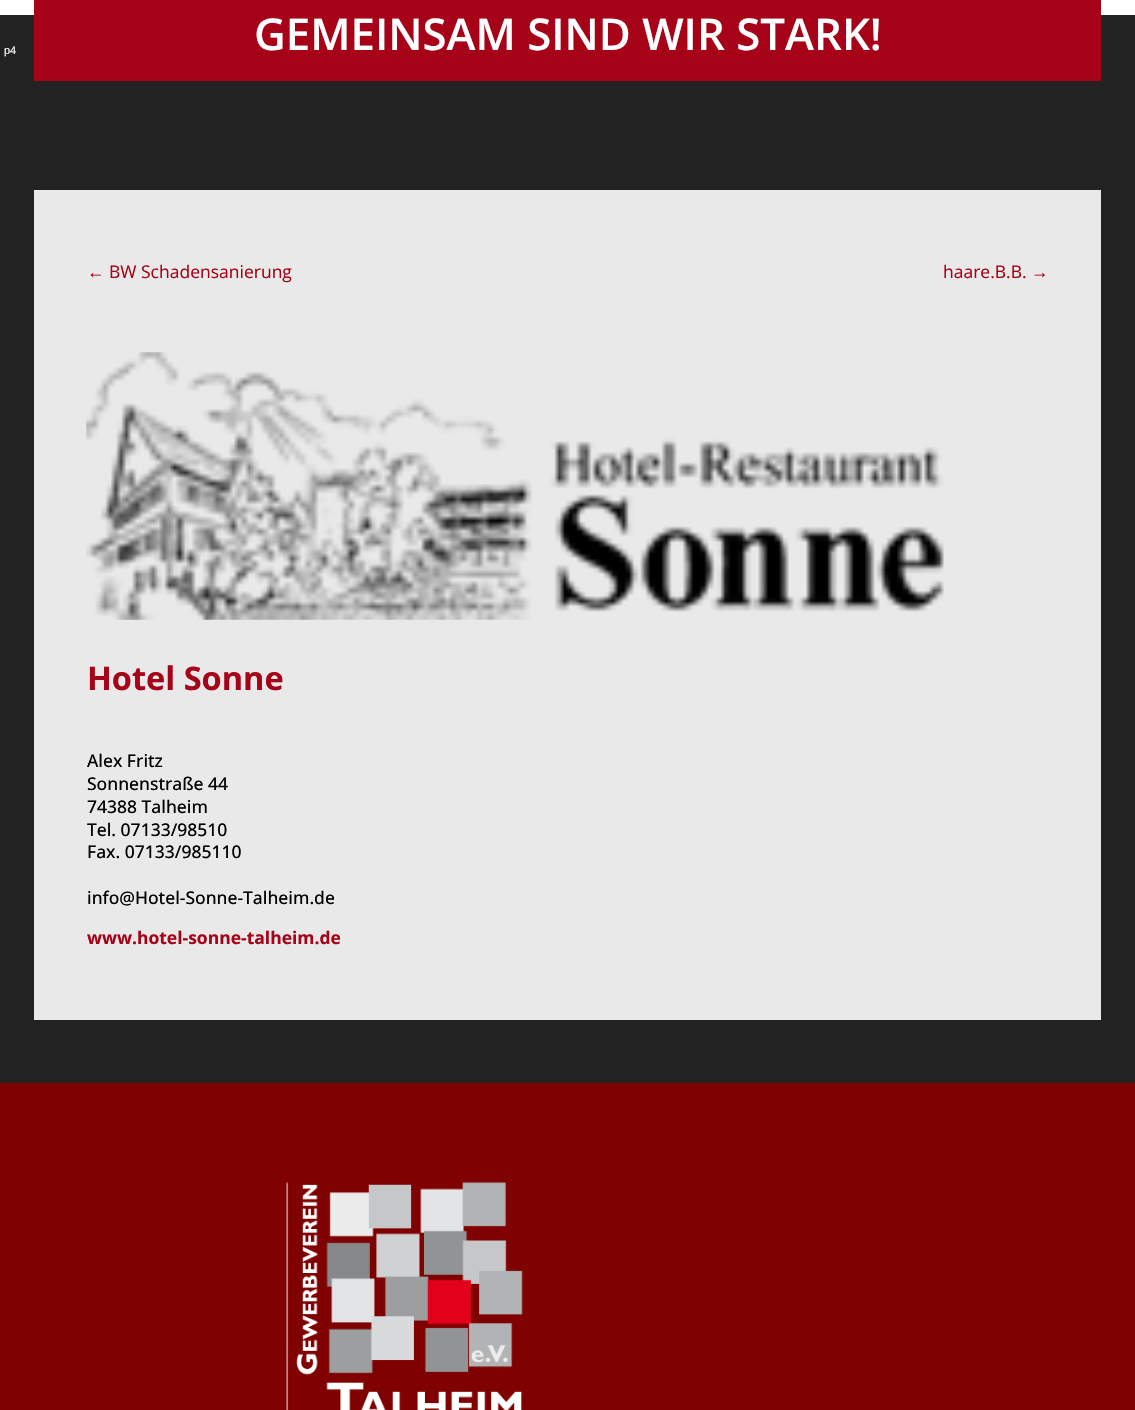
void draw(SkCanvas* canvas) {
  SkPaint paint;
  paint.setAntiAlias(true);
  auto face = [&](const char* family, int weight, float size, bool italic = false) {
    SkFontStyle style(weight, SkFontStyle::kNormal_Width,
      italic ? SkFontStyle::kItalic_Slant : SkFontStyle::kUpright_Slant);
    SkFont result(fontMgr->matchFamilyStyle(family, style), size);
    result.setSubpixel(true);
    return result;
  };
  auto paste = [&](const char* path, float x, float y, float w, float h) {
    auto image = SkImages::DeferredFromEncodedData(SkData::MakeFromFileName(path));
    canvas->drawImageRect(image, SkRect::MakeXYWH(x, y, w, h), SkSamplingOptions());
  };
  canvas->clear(0xffffffff);
  {
    const struct { float x, y, w, h; SkColor color; } items[] = {
      {0, 15, 1135, 1068, 0xff222222},
      {34, 0, 1067, 81, 0xffa60218},
      {34, 190, 1067, 830, 0xffe9e9e9},
    };
    for (auto [x, y, w, h, color] : items) {
      paint.setColor(color);
      canvas->drawRect(SkRect::MakeXYWH(x, y, w, h), paint);
    }
  }
  paste("img/1.png", 86, 352, 858, 268);
  paint.setColor(0xff7f0101);
  canvas->drawRect(SkRect::MakeXYWH(0, 1083, 1135, 327), paint);
  paste("img/2.png", 286, 1182, 237, 228);
  auto f0 = face("Open Sans", 600, 43.75f);
  paint.setColor(0xffffffff);
  canvas->drawString("GEMEINSAM SIND WIR STARK!", 254, 50, f0, paint);
  auto f1 = face("Liberation Sans", 400, 11);
  canvas->drawString("p4", 4, 54, f1, paint);
  auto f2 = face("Liberation Sans", 400, 17.5f);
  paint.setColor(0xffa60218);
  canvas->drawString("←", 87, 278, f2, paint);
  auto f3 = face("Open Sans", 400, 17.5f);
  canvas->drawString("BW Schadensanierung", 109, 278, f3, paint);
  canvas->drawString("haare.B.B.", 943, 278, f3, paint);
  canvas->drawString("→", 1031, 278, f2, paint);
  auto f4 = face("Open Sans", 700, 32.5f);
  canvas->drawString("Hotel Sonne", 87, 690, f4, paint);
  auto f5 = face("Open Sans", 500, 17.5f);
  paint.setColor(0xff000000);
  {
    const struct { const char* s; float x, y; } items[] = {
      {"Alex Fritz", 87, 767},
      {"Sonnenstraße 44", 87, 790},
      {"74388 Talheim", 87, 813},
      {"Tel. 07133/98510", 87, 836},
      {"Fax. 07133/985110", 87, 858},
      {"info@Hotel-Sonne-Talheim.de", 87, 904},
    };
    for (auto [s, x, y] : items) {
      canvas->drawString(s, x, y, f5, paint);
    }
  }
  auto f6 = face("Open Sans", 700, 17.5f);
  paint.setColor(0xffa60218);
  canvas->drawString("www.hotel-sonne-talheim.de", 87, 944, f6, paint);
}
